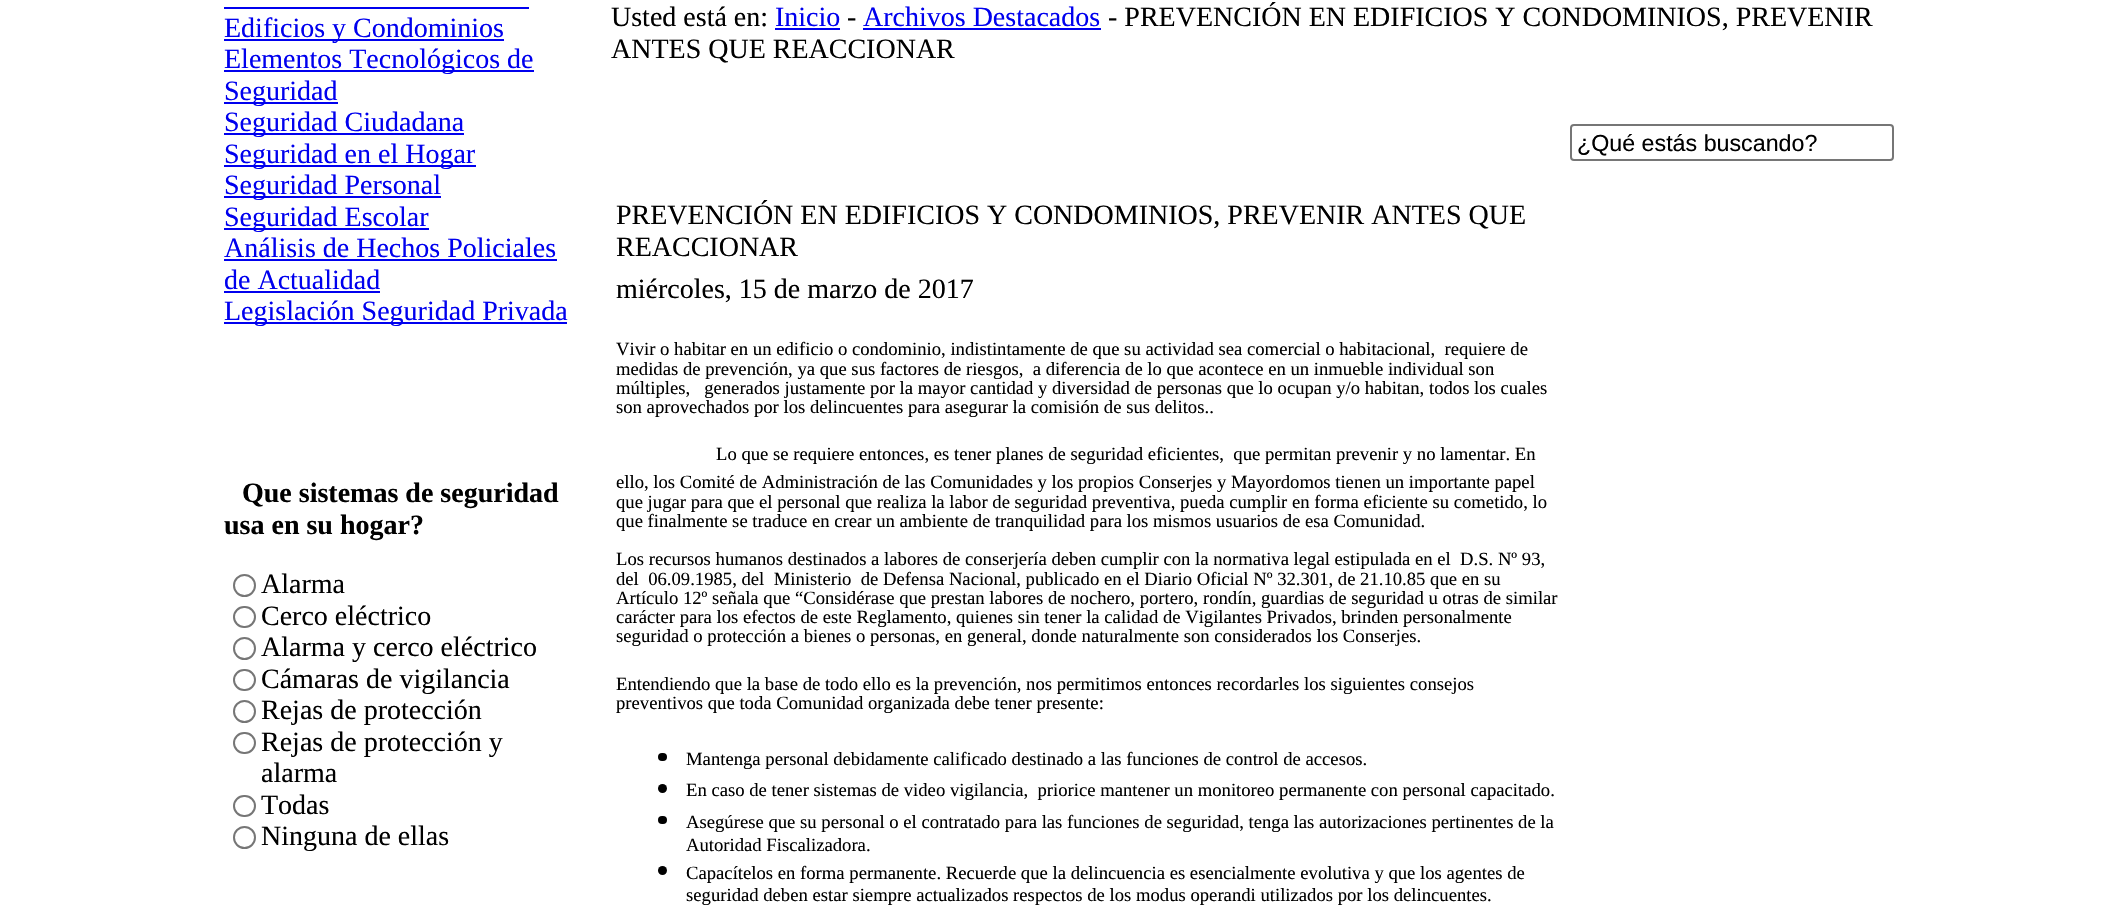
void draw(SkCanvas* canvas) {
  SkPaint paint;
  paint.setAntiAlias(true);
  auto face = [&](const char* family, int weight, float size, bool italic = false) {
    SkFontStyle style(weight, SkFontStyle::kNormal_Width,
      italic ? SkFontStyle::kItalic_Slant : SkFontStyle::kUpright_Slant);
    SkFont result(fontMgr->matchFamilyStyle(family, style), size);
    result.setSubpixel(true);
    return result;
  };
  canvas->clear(0xffffffff);
  {
    const struct { float x, y, w, h; SkColor color; } items[] = {
      {224, 7, 305, 2, 0xff0000ee},
      {224, 39, 280, 2, 0xff0000ee},
      {224, 70, 310, 2, 0xff0000ee},
      {224, 102, 114, 2, 0xff0000ee},
      {224, 133, 240, 2, 0xff0000ee},
      {224, 165, 252, 2, 0xff0000ee},
      {224, 196, 217, 2, 0xff0000ee},
      {224, 228, 205, 2, 0xff0000ee},
      {224, 259, 333, 2, 0xff0000ee},
      {224, 291, 156, 2, 0xff0000ee},
      {224, 322, 343, 2, 0xff0000ee},
    };
    for (auto [x, y, w, h, color] : items) {
      paint.setColor(color);
      canvas->drawRect(SkRect::MakeXYWH(x, y, w, h), paint);
    }
  }
  paint.setStroke(true);
  paint.setStrokeWidth(2);
  paint.setColor(0xff767676);
  canvas->drawCircle(244.5f, 585.5f, 10.5f, paint);
  canvas->drawRoundRect(SkRect::MakeXYWH(234, 607, 21, 20), 10, 10, paint);
  canvas->drawCircle(244.5f, 648.5f, 10.5f, paint);
  canvas->drawRoundRect(SkRect::MakeXYWH(234, 670, 21, 20), 10, 10, paint);
  canvas->drawCircle(244.5f, 711.5f, 10.5f, paint);
  canvas->drawRoundRect(SkRect::MakeXYWH(234, 733, 21, 20), 10, 10, paint);
  canvas->drawRoundRect(SkRect::MakeXYWH(234, 796, 21, 20), 10, 10, paint);
  canvas->drawCircle(244.5f, 837.5f, 10.5f, paint);
  paint.setStroke(false);
  paint.setColor(0xff0000ee);
  canvas->drawRect(SkRect::MakeXYWH(775, 28, 65, 2), paint);
  canvas->drawRect(SkRect::MakeXYWH(863, 28, 238, 2), paint);
  paint.setStroke(true);
  paint.setColor(0xff767676);
  canvas->drawRoundRect(SkRect::MakeXYWH(1571, 125, 322, 35), 3, 3, paint);
  paint.setStroke(false);
  paint.setColor(0xff000000);
  canvas->drawRoundRect(SkRect::MakeXYWH(658, 753, 9, 8), 4, 4, paint);
  canvas->drawCircle(662.5f, 788.5f, 4.5f, paint);
  canvas->drawRoundRect(SkRect::MakeXYWH(658, 816, 9, 8), 4, 4, paint);
  canvas->drawCircle(662.5f, 870.5f, 4.5f, paint);
  auto f0 = face("Liberation Serif", 400, 28);
  paint.setColor(0xff0000ee);
  {
    const struct { const char* s; float x, y; } items[] = {
      {"Edificios y Condominios", 224, 37},
      {"Elementos Tecnológicos de", 224, 68},
      {"Seguridad", 224, 100},
      {"Seguridad Ciudadana", 224, 131},
      {"Seguridad en el Hogar", 224, 163},
      {"Seguridad Personal", 224, 194},
      {"Seguridad Escolar", 224, 226},
      {"Análisis de Hechos Policiales", 224, 257},
      {"de Actualidad", 224, 289},
      {"Legislación Seguridad Privada", 224, 320},
    };
    for (auto [s, x, y] : items) {
      canvas->drawString(s, x, y, f0, paint);
    }
  }
  auto f1 = face("Liberation Serif", 700, 28);
  paint.setColor(0xff000000);
  canvas->drawString("Que sistemas de seguridad", 242, 502, f1, paint);
  canvas->drawString("usa en su hogar?", 224, 534, f1, paint);
  {
    const struct { const char* s; float x, y; } items[] = {
      {"Alarma", 261, 593},
      {"Cerco eléctrico", 261, 625},
      {"Alarma y cerco eléctrico", 261, 656},
      {"Cámaras de vigilancia", 261, 688},
      {"Rejas de protección", 261, 719},
      {"Rejas de protección y", 261, 751},
      {"alarma", 261, 782},
      {"Todas", 261, 814},
      {"Ninguna de ellas", 261, 845},
      {"Usted está en:", 611, 26},
    };
    for (auto [s, x, y] : items) {
      canvas->drawString(s, x, y, f0, paint);
    }
  }
  paint.setColor(0xff0000ee);
  canvas->drawString("Inicio", 775, 26, f0, paint);
  paint.setColor(0xff000000);
  canvas->drawString("-", 847, 26, f0, paint);
  paint.setColor(0xff0000ee);
  canvas->drawString("Archivos Destacados", 863, 26, f0, paint);
  paint.setColor(0xff000000);
  canvas->drawString("- PREVENCIÓN EN EDIFICIOS Y CONDOMINIOS, PREVENIR", 1108, 26, f0, paint);
  canvas->drawString("ANTES QUE REACCIONAR", 611, 58, f0, paint);
  auto f2 = face("Liberation Sans", 400, 23.25f);
  canvas->drawString("¿Qué estás buscando?", 1577, 151, f2, paint);
  {
    const struct { const char* s; float x, y; } items[] = {
      {"PREVENCIÓN EN EDIFICIOS Y CONDOMINIOS, PREVENIR ANTES QUE", 616, 224},
      {"REACCIONAR", 616, 256},
      {"miércoles, 15 de marzo de 2017", 616, 298},
    };
    for (auto [s, x, y] : items) {
      canvas->drawString(s, x, y, f0, paint);
    }
  }
  auto f3 = face("Liberation Serif", 400, 18.67f);
  {
    const struct { const char* s; float x, y; } items[] = {
      {"Vivir o habitar en un edificio o condominio, indistintamente de que su actividad sea comercial o habitacional,  requiere de", 616, 355},
      {"medidas de prevención, ya que sus factores de riesgos,  a diferencia de lo que acontece en un inmueble individual son", 616, 375},
      {"múltiples,   generados justamente por la mayor cantidad y diversidad de personas que lo ocupan y/o habitan, todos los cuales", 616, 394},
      {"son aprovechados por los delincuentes para asegurar la comisión de sus delitos..", 616, 413},
      {"Lo que se requiere entonces, es tener planes de seguridad eficientes,  que permitan prevenir y no lamentar. En", 716, 460},
      {"ello, los Comité de Administración de las Comunidades y los propios Conserjes y Mayordomos tienen un importante papel", 616, 488},
      {"que jugar para que el personal que realiza la labor de seguridad preventiva, pueda cumplir en forma eficiente su cometido, lo", 616, 508},
      {"que finalmente se traduce en crear un ambiente de tranquilidad para los mismos usuarios de esa Comunidad.", 616, 527},
      {"Los recursos humanos destinados a labores de conserjería deben cumplir con la normativa legal estipulada en el  D.S. Nº 93,", 616, 565},
      {"del  06.09.1985, del  Ministerio  de Defensa Nacional, publicado en el Diario Oficial Nº 32.301, de 21.10.85 que en su", 616, 585},
      {"Artículo 12º señala que “Considérase que prestan labores de nochero, portero, rondín, guardias de seguridad u otras de similar", 616, 604},
      {"carácter para los efectos de este Reglamento, quienes sin tener la calidad de Vigilantes Privados, brinden personalmente", 616, 623},
      {"seguridad o protección a bienes o personas, en general, donde naturalmente son considerados los Conserjes.", 616, 642},
      {"Entendiendo que la base de todo ello es la prevención, nos permitimos entonces recordarles los siguientes consejos", 616, 690},
      {"preventivos que toda Comunidad organizada debe tener presente:", 616, 709},
      {"Mantenga personal debidamente calificado destinado a las funciones de control de accesos.", 686, 765},
      {"En caso de tener sistemas de video vigilancia,  priorice mantener un monitoreo permanente con personal capacitado.", 686, 796},
      {"Asegúrese que su personal o el contratado para las funciones de seguridad, tenga las autorizaciones pertinentes de la", 686, 828},
      {"Autoridad Fiscalizadora.", 686, 851},
      {"Capacítelos en forma permanente. Recuerde que la delincuencia es esencialmente evolutiva y que los agentes de", 686, 879},
      {"seguridad deben estar siempre actualizados respectos de los modus operandi utilizados por los delincuentes.", 686, 901},
    };
    for (auto [s, x, y] : items) {
      canvas->drawString(s, x, y, f3, paint);
    }
  }
}
